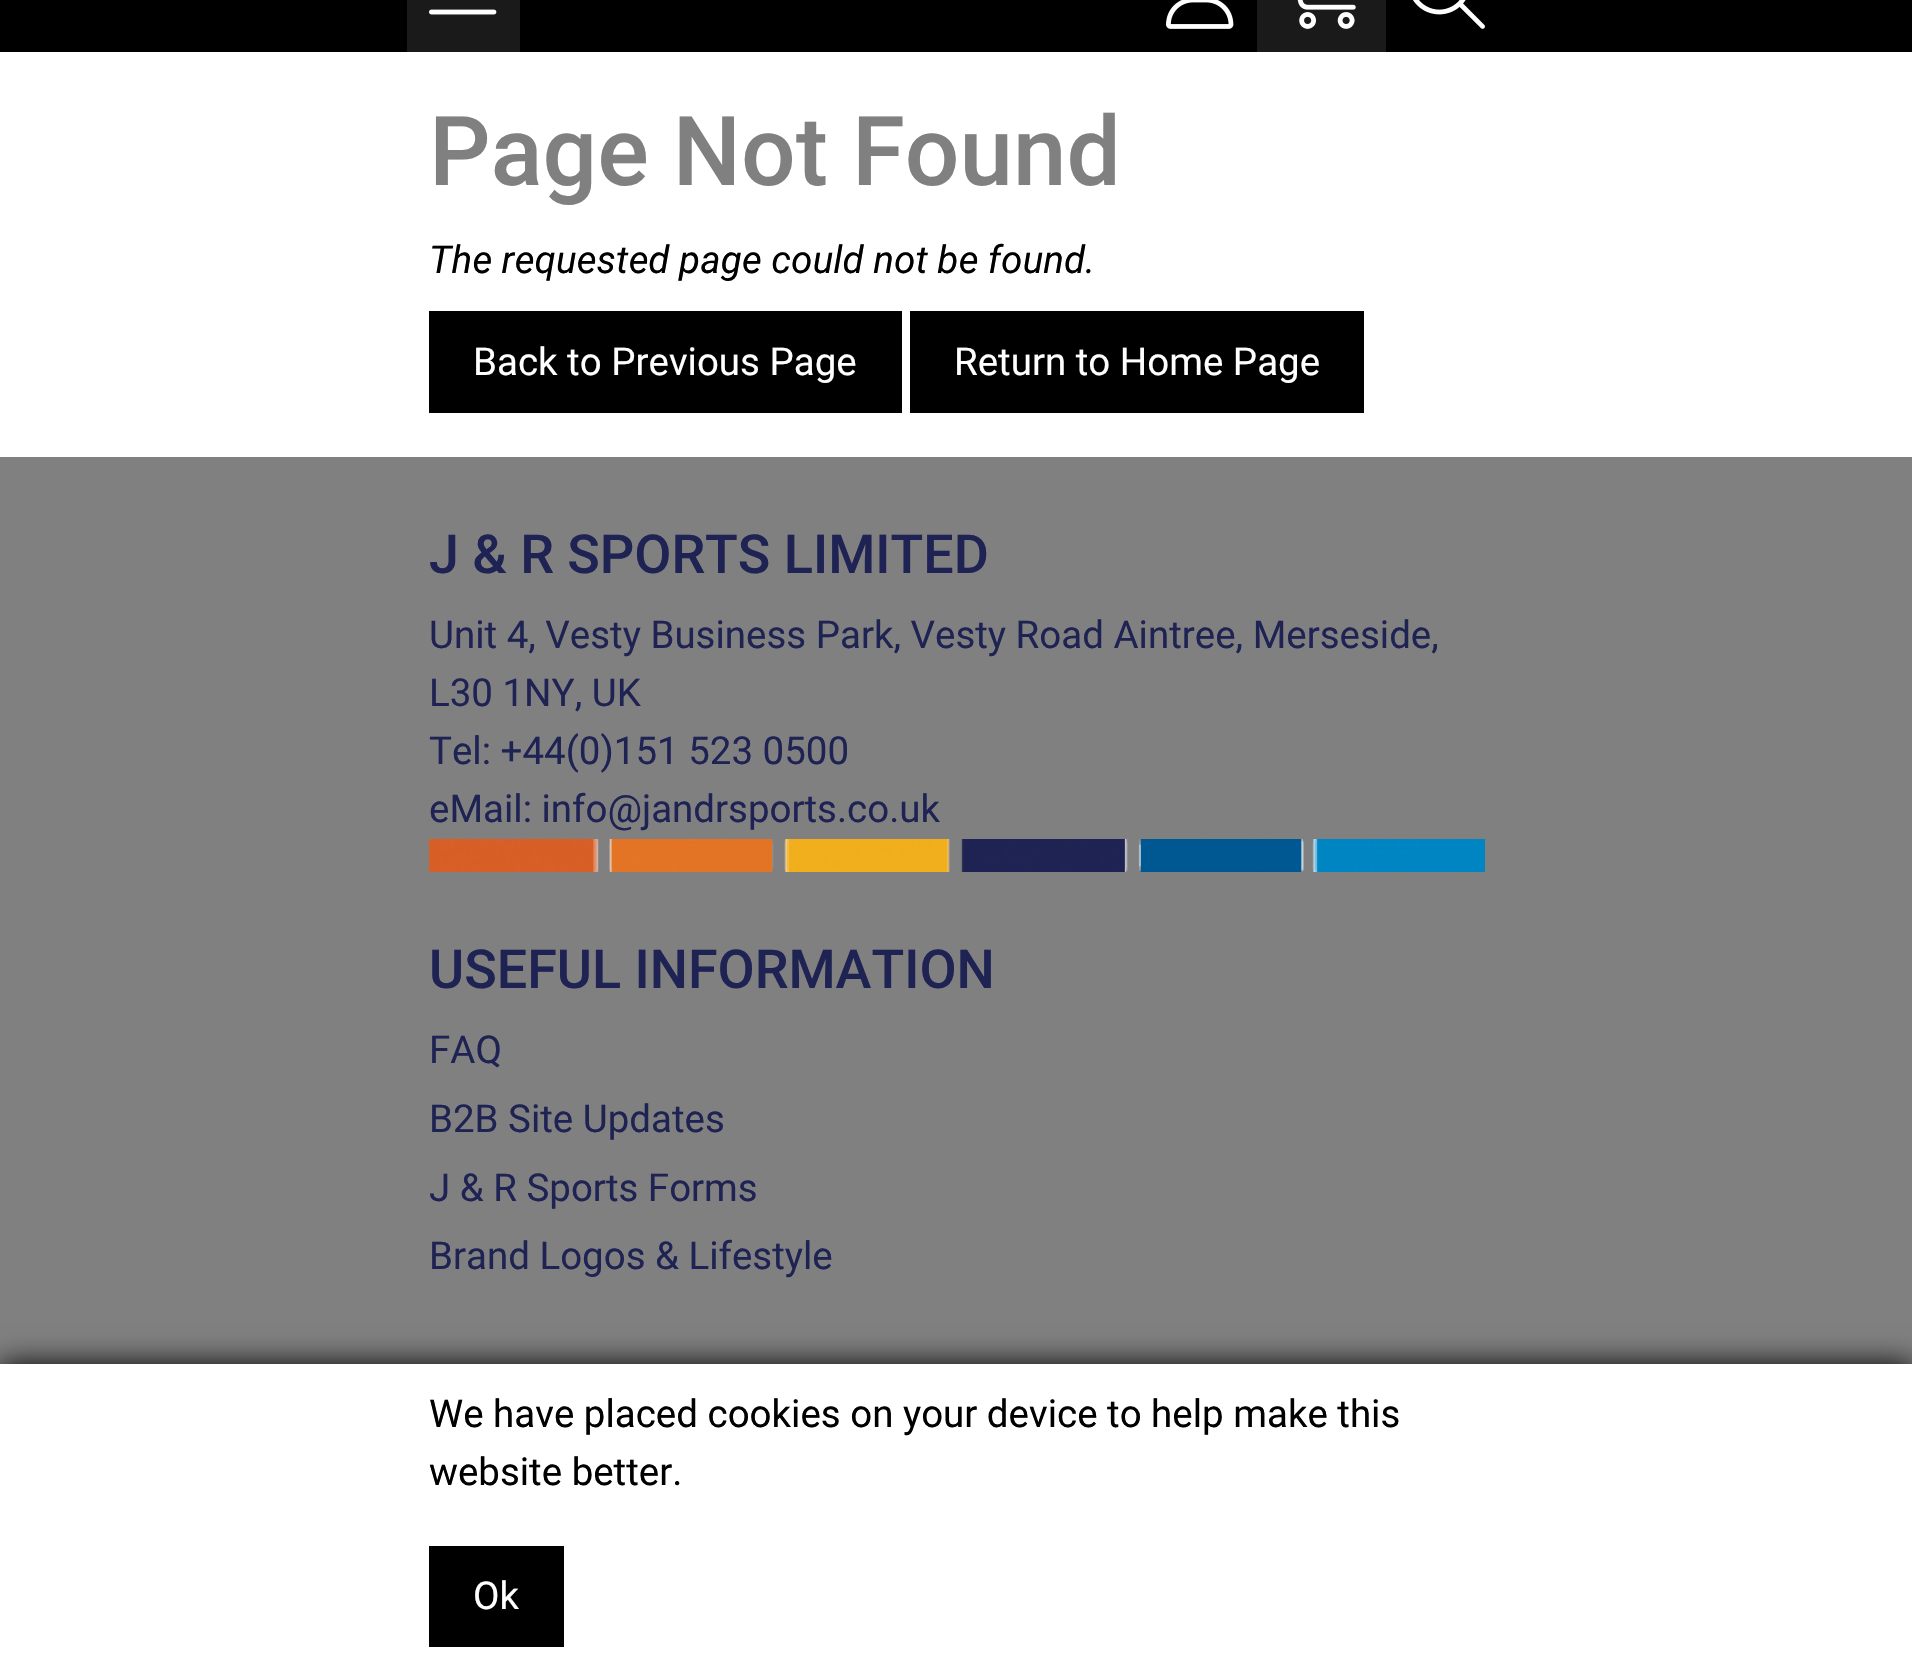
void draw(SkCanvas* canvas) {
  SkPaint paint;
  paint.setAntiAlias(true);
  auto face = [&](const char* family, int weight, float size, bool italic = false) {
    SkFontStyle style(weight, SkFontStyle::kNormal_Width,
      italic ? SkFontStyle::kItalic_Slant : SkFontStyle::kUpright_Slant);
    SkFont result(fontMgr->matchFamilyStyle(family, style), size);
    result.setSubpixel(true);
    return result;
  };
  auto paste = [&](const char* path, float x, float y, float w, float h) {
    auto image = SkImages::DeferredFromEncodedData(SkData::MakeFromFileName(path));
    canvas->drawImageRect(image, SkRect::MakeXYWH(x, y, w, h), SkSamplingOptions());
  };
  canvas->clear(0xffffffff);
  paint.setColor(0xff000000);
  canvas->drawRect(SkRect::MakeXYWH(0, 0, 1912, 52), paint);
  paint.setColor(0xff1a1a1a);
  canvas->drawRect(SkRect::MakeXYWH(407, 0, 113, 52), paint);
  paste("img/1.png", 429, 9, 68, 6);
  paste("img/2.png", 1166, 0, 68, 29);
  canvas->drawRect(SkRect::MakeXYWH(1257, 0, 129, 52), paint);
  paste("img/3.png", 1297, 0, 59, 29);
  paste("img/4.png", 1413, 0, 72, 29);
  {
    const struct { float x, y, w, h; SkColor color; } items[] = {
      {429, 311, 473, 102, 0xff000000},
      {910, 311, 454, 102, 0xff000000},
      {0, 457, 1912, 907, 0xff808080},
    };
    for (auto [x, y, w, h, color] : items) {
      paint.setColor(color);
      canvas->drawRect(SkRect::MakeXYWH(x, y, w, h), paint);
    }
  }
  paste("img/5.png", 429, 839, 1056, 33);
  paint.setColor(0xff000000);
  paint.setMaskFilter(SkMaskFilter::MakeBlur(kNormal_SkBlurStyle, 14));
  canvas->drawRect(SkRect::MakeXYWH(0, 1364, 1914, 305), paint);
  paint.setMaskFilter(nullptr);
  paint.setColor(0xffffffff);
  canvas->drawRect(SkRect::MakeXYWH(0, 1364, 1912, 303), paint);
  paint.setColor(0xff000000);
  canvas->drawRect(SkRect::MakeXYWH(429, 1546, 135, 101), paint);
  auto f0 = face("Roboto", 500, 96.25f);
  paint.setColor(0xff808080);
  canvas->drawString("Page Not Found", 429, 185, f0, paint);
  auto f1 = face("Roboto", 400, 38.5f, true);
  paint.setColor(0xff000000);
  canvas->drawString("The requested page could not be found.", 429, 273, f1, paint);
  auto f2 = face("Roboto", 400, 38.5f);
  paint.setColor(0xffffffff);
  canvas->drawString("Back to Previous Page", 473, 375, f2, paint);
  canvas->drawString("Return to Home Page", 954, 375, f2, paint);
  auto f3 = face("Roboto", 500, 53.9f);
  paint.setColor(0xff1f2353);
  canvas->drawString("J & R SPORTS LIMITED", 429, 573, f3, paint);
  {
    const struct { const char* s; float x, y; } items[] = {
      {"Unit 4, Vesty Business Park, Vesty Road Aintree, Merseside,", 429, 648},
      {"L30 1NY, UK", 429, 706},
      {"Tel: +44(0)151 523 0500", 429, 764},
      {"eMail: info@jandrsports.co.uk", 429, 822},
    };
    for (auto [s, x, y] : items) {
      canvas->drawString(s, x, y, f2, paint);
    }
  }
  canvas->drawString("USEFUL INFORMATION", 429, 988, f3, paint);
  {
    const struct { const char* s; float x, y; } items[] = {
      {"FAQ", 429, 1063},
      {"B2B Site Updates", 429, 1132},
      {"J & R Sports Forms", 429, 1201},
      {"Brand Logos & Lifestyle", 429, 1269},
    };
    for (auto [s, x, y] : items) {
      canvas->drawString(s, x, y, f2, paint);
    }
  }
  paint.setColor(0xff000000);
  canvas->drawString("We have placed cookies on your device to help make this", 429, 1427, f2, paint);
  canvas->drawString("website better.", 429, 1485, f2, paint);
  paint.setColor(0xffffffff);
  canvas->drawString("Ok", 473, 1609, f2, paint);
}
